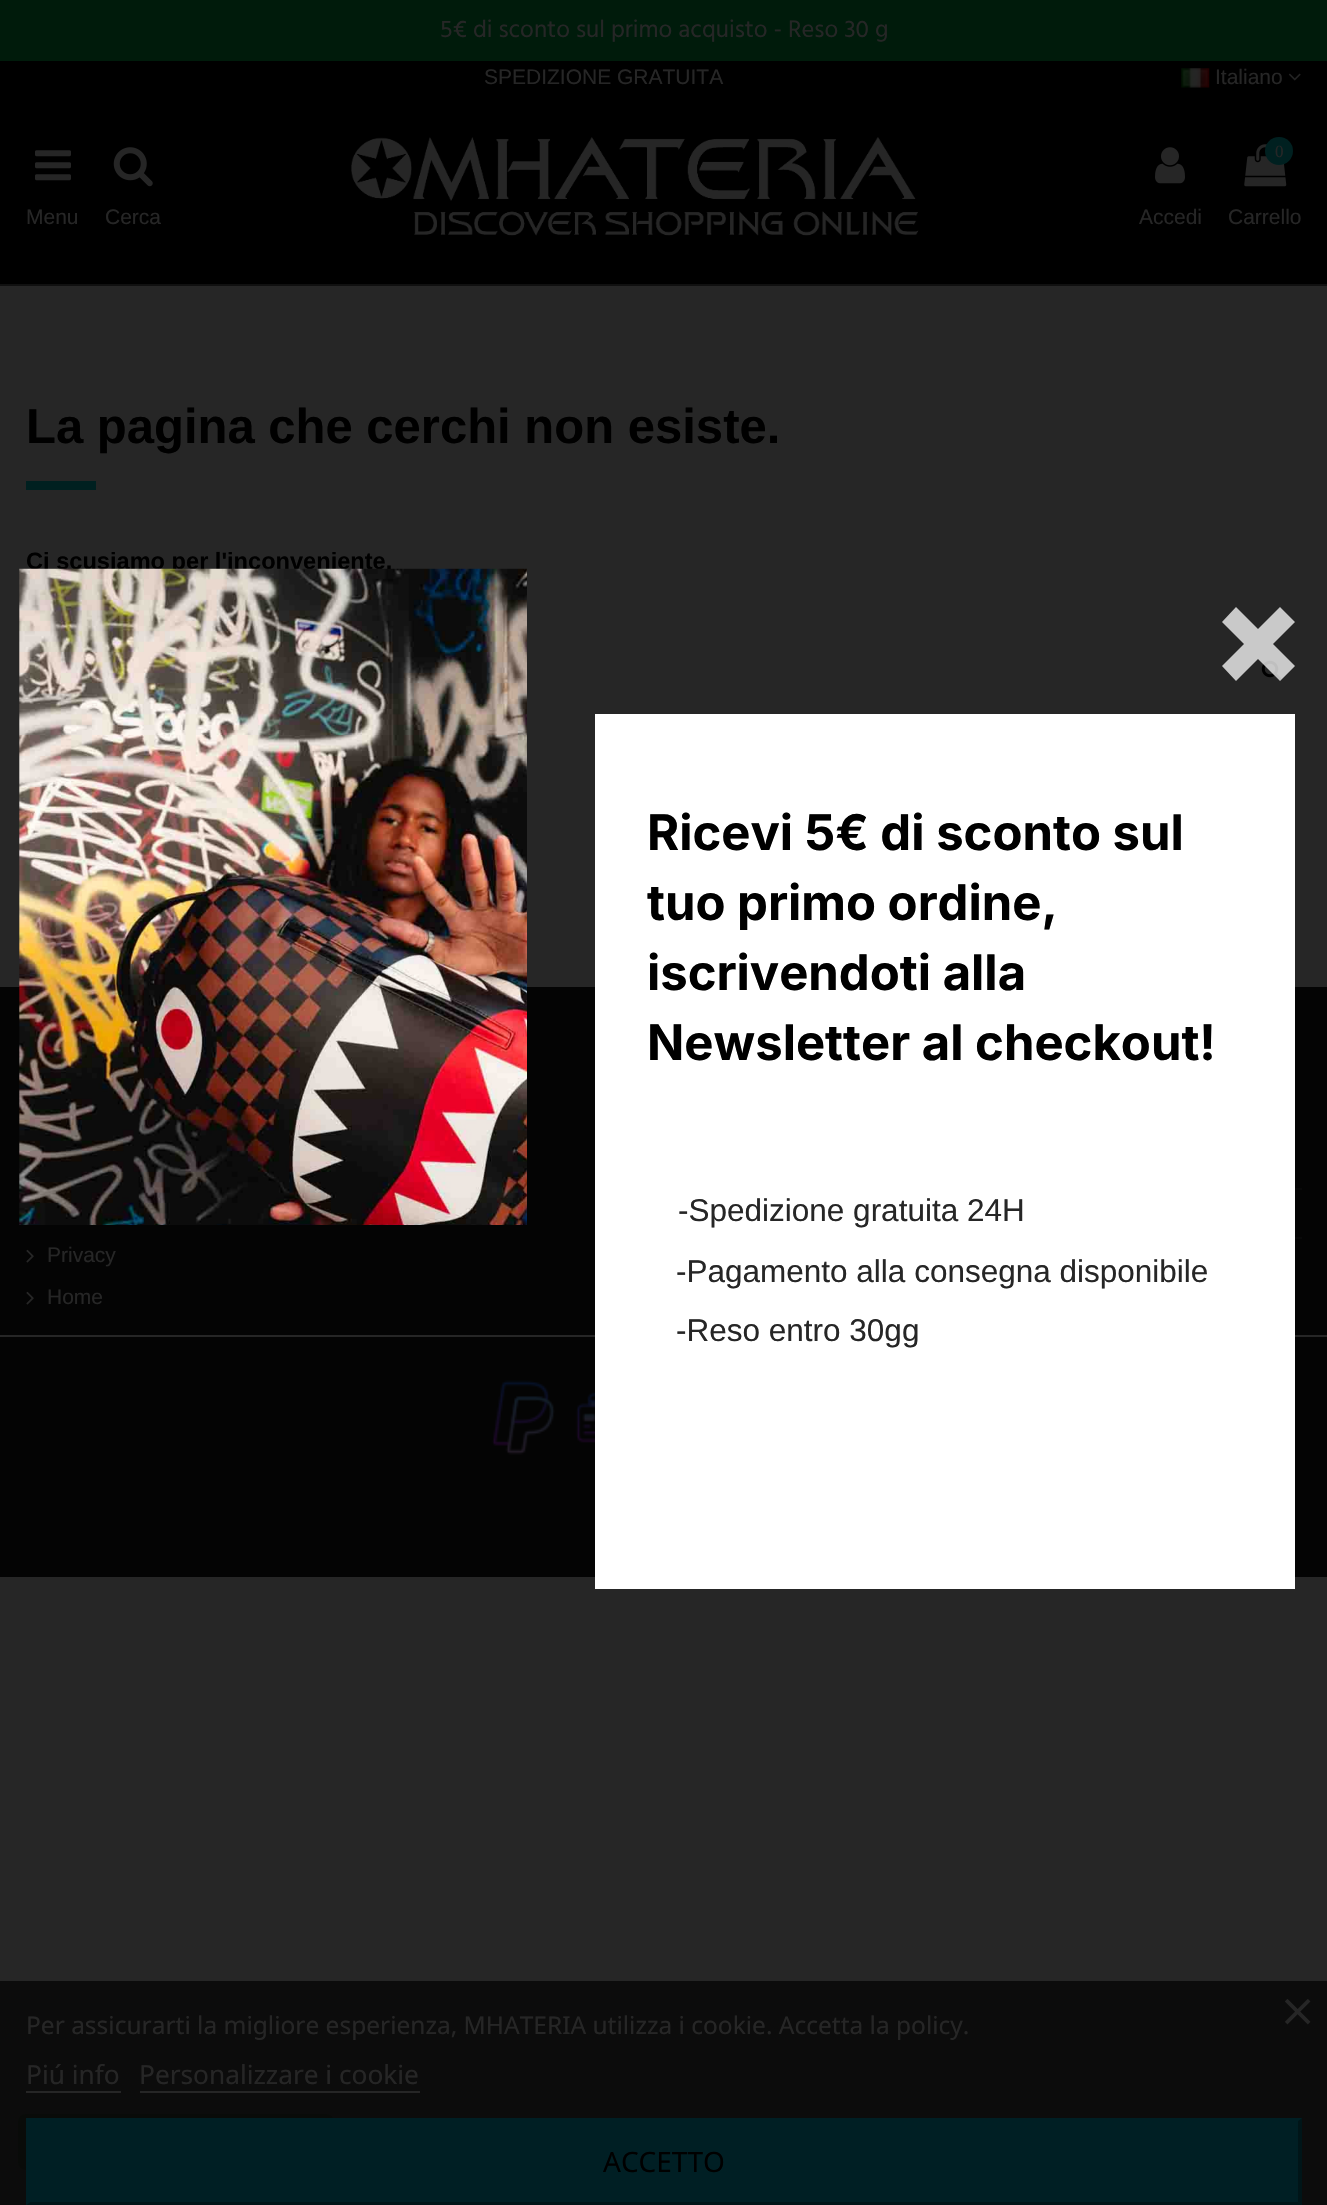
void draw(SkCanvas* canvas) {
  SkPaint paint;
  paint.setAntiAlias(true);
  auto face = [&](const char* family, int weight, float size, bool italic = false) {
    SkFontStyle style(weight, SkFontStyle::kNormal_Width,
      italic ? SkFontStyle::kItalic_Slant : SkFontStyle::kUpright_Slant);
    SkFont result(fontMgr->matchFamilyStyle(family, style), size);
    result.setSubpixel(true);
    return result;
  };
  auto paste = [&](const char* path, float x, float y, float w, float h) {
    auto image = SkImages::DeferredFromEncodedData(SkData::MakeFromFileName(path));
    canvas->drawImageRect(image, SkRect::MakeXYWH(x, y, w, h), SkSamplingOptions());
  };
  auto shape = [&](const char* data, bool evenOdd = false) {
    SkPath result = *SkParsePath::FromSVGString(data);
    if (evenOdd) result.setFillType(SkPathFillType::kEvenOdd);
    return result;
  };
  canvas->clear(0xff262626);
  {
    const struct { float x, y, w, h; SkColor color; } items[] = {
      {0, 1981, 1327, 224, 0xff0c0c0c},
      {0, 0, 1327, 61, 0xff001b0b},
      {0, 61, 1327, 223, 0xff000000},
    };
    for (auto [x, y, w, h, color] : items) {
      paint.setColor(color);
      canvas->drawRect(SkRect::MakeXYWH(x, y, w, h), paint);
    }
  }
  paste("img/1.png", 1181, 68, 29, 20);
  paste("img/2.png", 1288, 73, 13, 8);
  paint.setColor(0xff101010);
  canvas->drawRect(SkRect::MakeXYWH(0, 284, 1327, 2), paint);
  paste("img/3.png", 35, 150, 36, 31);
  paste("img/4.png", 113, 147, 40, 40);
  paste("img/5.png", 351, 137, 568, 99);
  paste("img/6.png", 1155, 147, 30, 37);
  paste("img/7.png", 1244, 144, 43, 43);
  paint.setColor(0xff002020);
  canvas->drawCircle(1279, 151, 14, paint);
  canvas->drawRect(SkRect::MakeXYWH(26, 481, 70, 9), paint);
  paste("img/8.png", 1261, 660, 21, 21);
  {
    const struct { float x, y, w, h; SkColor color; } items[] = {
      {0, 987, 1327, 590, 0xff040404},
      {1295, 1188, 7, 2, 0xff090909},
      {1295, 1237, 7, 2, 0xff090909},
    };
    for (auto [x, y, w, h, color] : items) {
      paint.setColor(color);
      canvas->drawRect(SkRect::MakeXYWH(x, y, w, h), paint);
    }
  }
  paste("img/9.png", 26, 1249, 8, 14);
  paste("img/9.png", 26, 1291, 8, 14);
  paste("img/10.png", 1285, 1999, 26, 26);
  paint.setColor(0xff262626);
  canvas->drawRect(SkRect::MakeXYWH(26, 2091, 95, 2), paint);
  canvas->drawRect(SkRect::MakeXYWH(140, 2091, 280, 2), paint);
  paint.setColor(0xff090b09);
  canvas->drawRoundRect(SkRect::MakeXYWH(18, 2114, 316, 56), 7, 7, paint);
  paint.setColor(0xff001f24);
  canvas->drawRect(SkRect::MakeXYWH(26, 2118, 1276, 87), paint);
  paint.setColor(0xff001518);
  canvas->drawPath(shape("M1302 2118V2205L1298 2202V2121Z"), paint);
  canvas->drawPath(shape("M1302 2205H26L30 2202H1298Z"), paint);
  paint.setColor(0xff001f24);
  canvas->drawPath(shape("M26 2205V2118L30 2121V2202Z"), paint);
  paint.setColor(0xff262626);
  canvas->drawRect(SkRect::MakeXYWH(0, 1335, 1327, 2), paint);
  paste("img/11.png", 491, 1380, 64, 75);
  paste("img/12.png", 575, 1392, 20, 51);
  paint.setColor(0xbfffffff);
  canvas->drawPath(shape("M1295 666L1273 644L1295 622L1280 607L1258 629L1236 607L1222 622L1244 644L1222 666L1236 681L1258 659L1280 681Z"), paint);
  paint.setColor(0xffffffff);
  canvas->drawRect(SkRect::MakeXYWH(595, 714, 700, 875), paint);
  auto f0 = face("Hind", 400, 24.5f);
  paint.setColor(0xff262626);
  canvas->drawString("5€ di sconto sul primo acquisto - Reso 30 g", 440, 37, f0, paint);
  auto f1 = face("Liberation Sans", 400, 21);
  {
    const struct { const char* s; float x, y; } items[] = {
      {"SPEDIZIONE GRATUITA", 484, 84},
      {"Italiano", 1215, 84},
      {"Menu", 26, 224},
      {"Cerca", 105, 224},
      {"Accedi", 1139, 224},
    };
    for (auto [s, x, y] : items) {
      canvas->drawString(s, x, y, f1, paint);
    }
  }
  auto f2 = face("Liberation Serif", 400, 17);
  canvas->drawString("0", 1275, 157, f2, paint);
  canvas->drawString("Carrello", 1228, 224, f1, paint);
  auto f3 = face("Liberation Sans", 700, 49);
  paint.setColor(0xff000000);
  canvas->drawString("La pagina che cerchi non esiste.", 26, 443, f3, paint);
  auto f4 = face("Liberation Sans", 700, 23.6f);
  canvas->drawString("Ci scusiamo per l'inconveniente.", 26, 569, f4, paint);
  paint.setColor(0xff262626);
  canvas->drawString("Privacy", 47, 1262, f1, paint);
  canvas->drawString("Home", 47, 1304, f1, paint);
  auto f5 = face("Noto Sans", 400, 24.5f);
  canvas->drawString("Per assicurarti la migliore esperienza, MHATERIA utilizza i cookie. Accetta la policy.", 26, 2034, f5, paint);
  auto f6 = face("Noto Sans", 400, 26.25f);
  canvas->drawString("Piú info", 26, 2084, f6, paint);
  canvas->drawString("Personalizzare i cookie", 139, 2084, f6, paint);
  auto f7 = face("Noto Sans", 400, 28);
  paint.setColor(0xff000000);
  canvas->drawString("ACCETTO", 603, 2172, f7, paint);
  paste("img/13.png", 19, 568, 508, 657);
  auto f8 = face("Inter", 700, 49);
  {
    const struct { const char* s; float x, y; } items[] = {
      {"Ricevi 5€ di sconto sul", 647, 850},
      {"tuo primo ordine,", 647, 920},
      {"iscrivendoti alla", 647, 990},
      {"Newsletter al checkout!", 647, 1060},
    };
    for (auto [s, x, y] : items) {
      canvas->drawString(s, x, y, f8, paint);
    }
  }
  auto f9 = face("Liberation Sans", 400, 31.5f);
  paint.setColor(0xff262626);
  {
    const struct { const char* s; float x, y; } items[] = {
      {"-Spedizione gratuita 24H", 678, 1221},
      {"-Pagamento alla consegna disponibile", 676, 1282},
      {"-Reso entro 30gg", 676, 1341},
    };
    for (auto [s, x, y] : items) {
      canvas->drawString(s, x, y, f9, paint);
    }
  }
}
